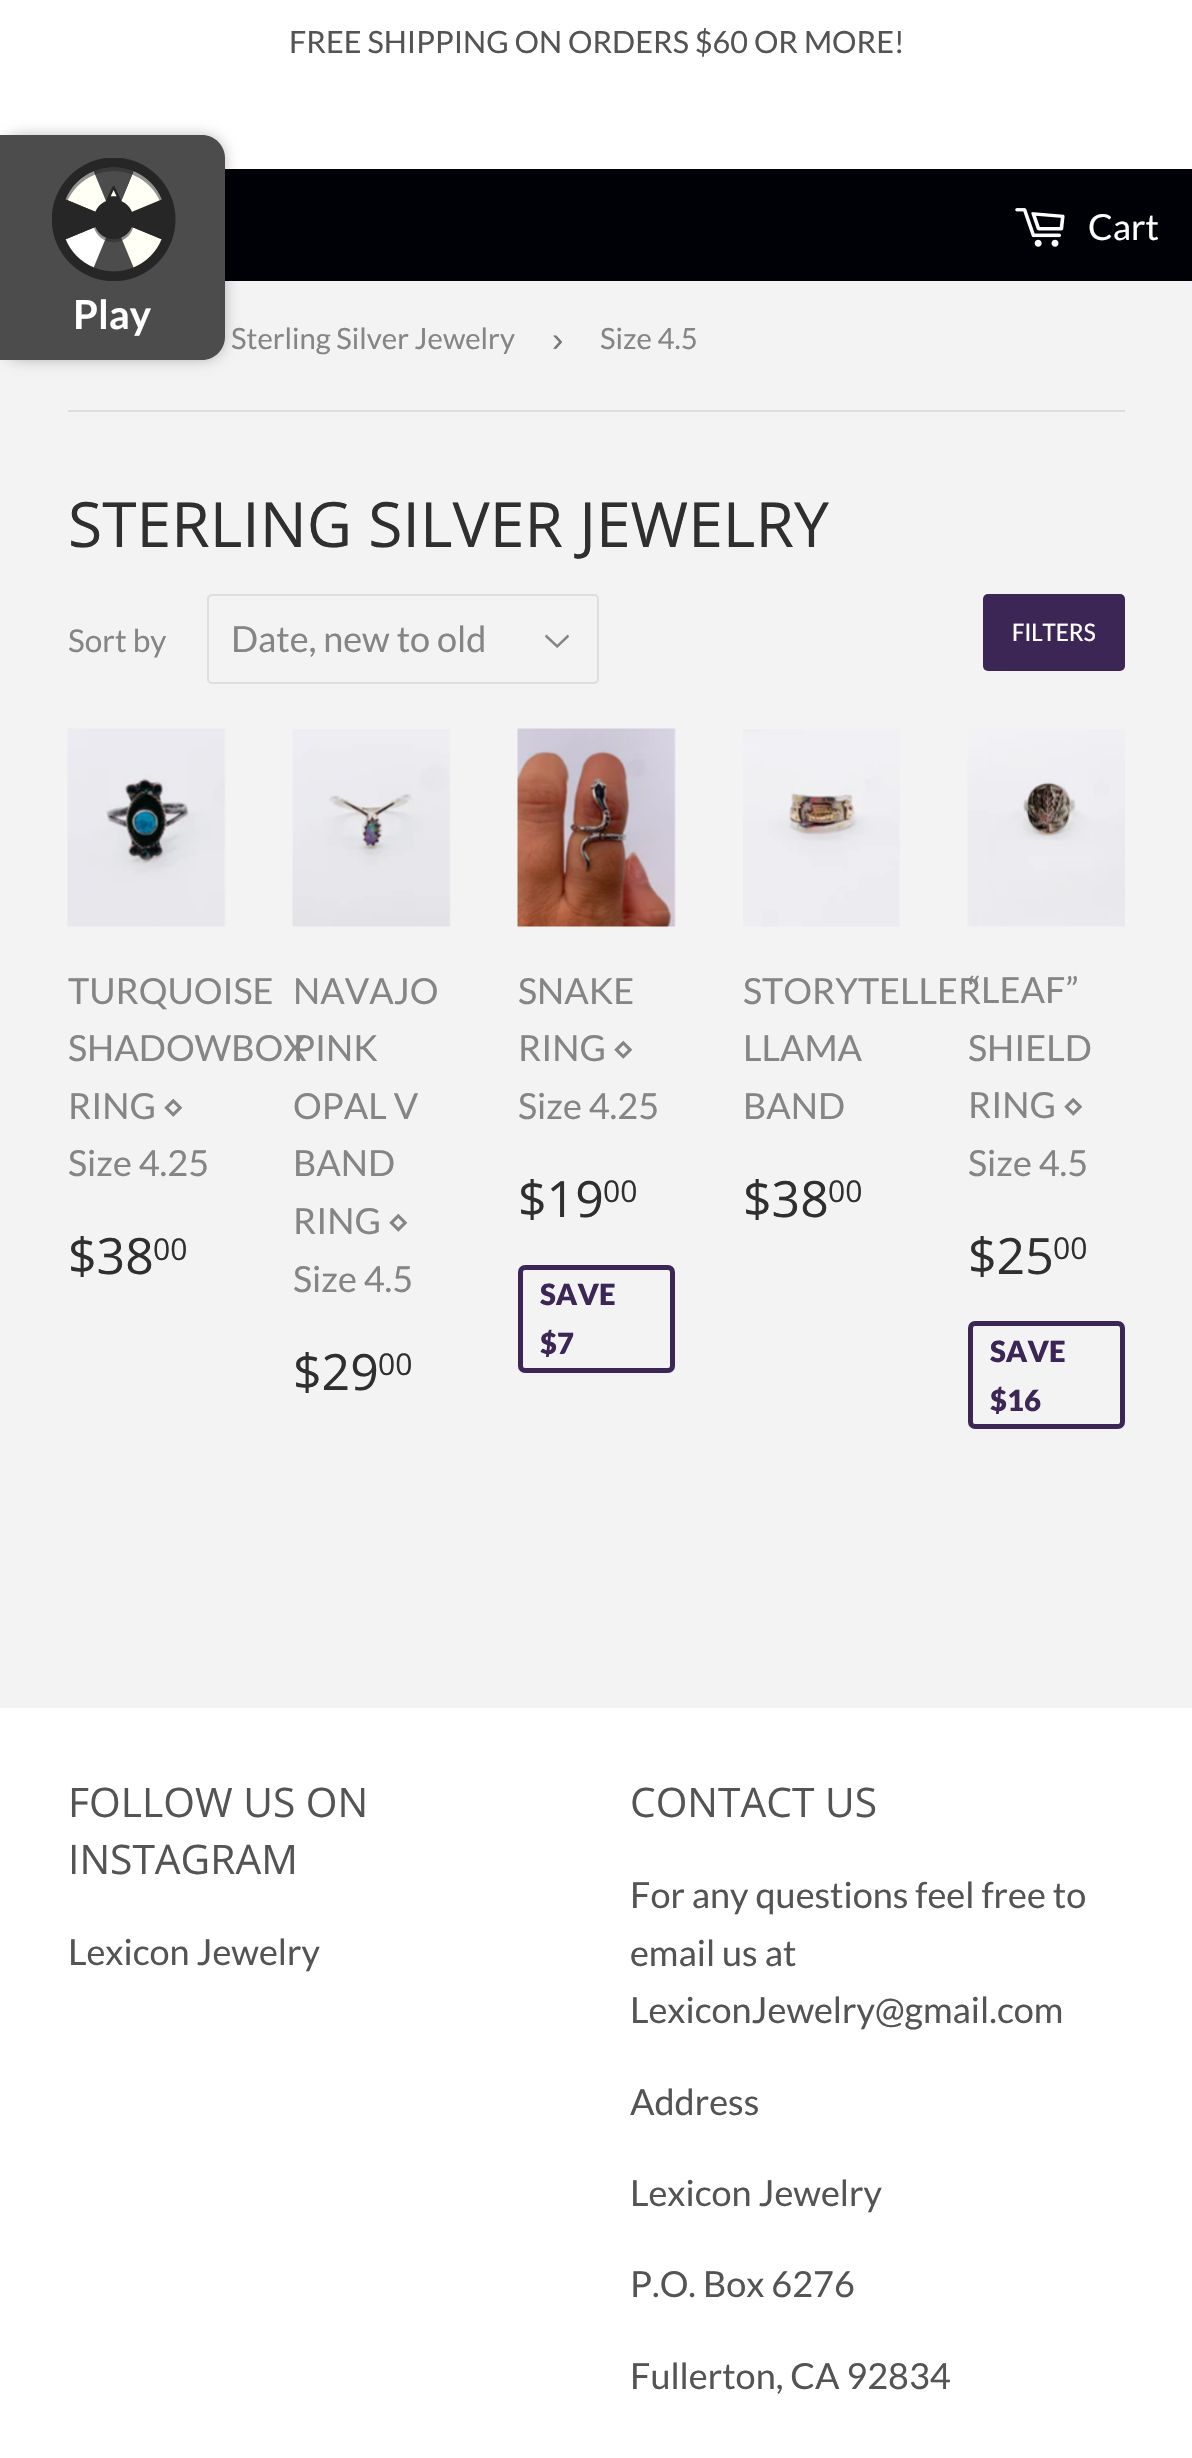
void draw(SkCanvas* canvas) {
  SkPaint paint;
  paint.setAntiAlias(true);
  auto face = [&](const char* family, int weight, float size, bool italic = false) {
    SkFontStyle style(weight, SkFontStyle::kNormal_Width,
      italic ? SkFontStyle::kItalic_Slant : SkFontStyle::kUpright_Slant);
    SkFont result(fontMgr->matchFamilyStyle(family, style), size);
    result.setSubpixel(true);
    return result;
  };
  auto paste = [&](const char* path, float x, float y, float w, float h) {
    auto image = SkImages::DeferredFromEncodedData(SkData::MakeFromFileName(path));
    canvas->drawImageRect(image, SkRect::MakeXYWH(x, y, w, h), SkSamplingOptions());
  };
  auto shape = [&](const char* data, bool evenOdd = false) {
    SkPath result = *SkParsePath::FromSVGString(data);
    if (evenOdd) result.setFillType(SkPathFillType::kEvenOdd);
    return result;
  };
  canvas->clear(0xfff3f3f3);
  paint.setColor(0xffffffff);
  canvas->drawRect(SkRect::MakeXYWH(0, 0, 1192, 169), paint);
  paint.setColor(0xff000106);
  canvas->drawRect(SkRect::MakeXYWH(225, 169, 967, 112), paint);
  paste("img/1.png", 1015, 208, 50, 39);
  paint.setColor(0x40000000);
  paint.setMaskFilter(SkMaskFilter::MakeBlur(kNormal_SkBlurStyle, 7));
  canvas->drawRoundRect(SkRect::MakeXYWH(0, 135, 225, 225), 23, 23, paint);
  paint.setMaskFilter(nullptr);
  paint.setColor(0xff4c4c4c);
  canvas->drawPath(shape("M0 135H202C214.5 135 225 145.5 225 158V337C225 349.5 214.5 360 202 360H0Z"), paint);
  paste("img/2.png", 52, 158, 124, 123);
  paint.setColor(0xffdedede);
  canvas->drawRect(SkRect::MakeXYWH(68, 410, 1057, 2), paint);
  paste("img/3.png", 545, 634, 24, 14);
  paint.setStroke(true);
  paint.setStrokeWidth(2);
  canvas->drawRoundRect(SkRect::MakeXYWH(208, 595, 390, 88), 4, 4, paint);
  paint.setStroke(false);
  paint.setColor(0xff3b2656);
  canvas->drawRoundRect(SkRect::MakeXYWH(983, 594, 142, 77), 5, 5, paint);
  paste("img/4.png", 67, 728, 159, 199);
  paste("img/5.png", 292, 729, 159, 198);
  paste("img/6.png", 517, 728, 159, 199);
  paint.setStroke(true);
  paint.setStrokeWidth(5);
  canvas->drawRoundRect(SkRect::MakeXYWH(520.5f, 1267.5f, 152, 103), 4.5f, 4.5f, paint);
  paste("img/7.png", 743, 729, 157, 198);
  paste("img/8.png", 967, 729, 158, 198);
  canvas->drawRoundRect(SkRect::MakeXYWH(970.5f, 1323.5f, 152, 103), 4.5f, 4.5f, paint);
  paint.setStroke(false);
  paint.setColor(0xffffffff);
  canvas->drawRect(SkRect::MakeXYWH(0, 1708, 1192, 750), paint);
  auto f0 = face("Lato", 400, 30.6f);
  paint.setColor(0xff545454);
  canvas->drawString("FREE SHIPPING ON ORDERS $60 OR MORE!", 289, 53, f0, paint);
  auto f1 = face("Lato", 400, 36);
  paint.setColor(0xffffffff);
  canvas->drawString("Cart", 1088, 240, f1, paint);
  auto f2 = face("Lato", 700, 40);
  canvas->drawString("Play", 73, 329, f2, paint);
  auto f3 = face("Lato", 400, 29.25f);
  paint.setColor(0xff858585);
  canvas->drawString("Sterling Silver Jewelry", 231, 349, f3, paint);
  auto f4 = face("Liberation Sans", 400, 34);
  paint.setColor(0xff767676);
  canvas->drawString("›", 552, 351, f4, paint);
  paint.setColor(0xff858585);
  canvas->drawString("Size 4.5", 600, 349, f3, paint);
  auto f5 = face("Open Sans", 400, 62.4f);
  paint.setColor(0xff2f2f2f);
  canvas->drawString("STERLING SILVER JEWELRY", 68, 547, f5, paint);
  auto f6 = face("Lato", 400, 31.5f);
  paint.setColor(0xff858585);
  canvas->drawString("Sort by", 68, 652, f6, paint);
  canvas->drawString("Date, new to old", 231, 652, f1, paint);
  auto f7 = face("Carlito", 400, 27);
  paint.setColor(0xffffffff);
  canvas->drawString("FILTERS", 1012, 641, f7, paint);
  paint.setColor(0xff858585);
  {
    const struct { const char* s; float x, y; } items[] = {
      {"TURQUOISE", 68, 1004},
      {"SHADOWBOX", 68, 1061},
      {"RING", 68, 1119},
    };
    for (auto [s, x, y] : items) {
      canvas->drawString(s, x, y, f1, paint);
    }
  }
  auto f8 = face("DejaVu Sans", 400, 36);
  canvas->drawString("⋄", 162, 1119, f8, paint);
  canvas->drawString("Size 4.25", 68, 1176, f1, paint);
  auto f9 = face("Open Sans", 400, 50);
  paint.setColor(0xff2f2f2f);
  canvas->drawString("$38", 68, 1274, f9, paint);
  auto f10 = face("Open Sans", 400, 30);
  canvas->drawString("00", 153, 1260, f10, paint);
  paint.setColor(0xff858585);
  {
    const struct { const char* s; float x, y; } items[] = {
      {"NAVAJO", 293, 1004},
      {"PINK", 293, 1061},
      {"OPAL V", 293, 1119},
      {"BAND", 293, 1176},
      {"RING", 293, 1234},
    };
    for (auto [s, x, y] : items) {
      canvas->drawString(s, x, y, f1, paint);
    }
  }
  canvas->drawString("⋄", 387, 1234, f8, paint);
  canvas->drawString("Size 4.5", 293, 1292, f1, paint);
  paint.setColor(0xff2f2f2f);
  canvas->drawString("$29", 293, 1390, f9, paint);
  canvas->drawString("00", 378, 1375, f10, paint);
  paint.setColor(0xff858585);
  canvas->drawString("SNAKE", 518, 1004, f1, paint);
  canvas->drawString("RING", 518, 1061, f1, paint);
  canvas->drawString("⋄", 612, 1061, f8, paint);
  canvas->drawString("Size 4.25", 518, 1119, f1, paint);
  paint.setColor(0xff2f2f2f);
  canvas->drawString("$19", 518, 1217, f9, paint);
  canvas->drawString("00", 603, 1202, f10, paint);
  auto f11 = face("Lato", 900, 29.25f);
  paint.setColor(0xff3b2656);
  canvas->drawString("SAVE", 540, 1305, f11, paint);
  canvas->drawString("$7", 540, 1354, f11, paint);
  paint.setColor(0xff858585);
  {
    const struct { const char* s; float x, y; } items[] = {
      {"STORYTELLER", 743, 1004},
      {"LLAMA", 743, 1061},
      {"BAND", 743, 1119},
    };
    for (auto [s, x, y] : items) {
      canvas->drawString(s, x, y, f1, paint);
    }
  }
  paint.setColor(0xff2f2f2f);
  canvas->drawString("$38", 743, 1217, f9, paint);
  canvas->drawString("00", 828, 1202, f10, paint);
  paint.setColor(0xff858585);
  {
    const struct { const char* s; float x, y; } items[] = {
      {"“LEAF”", 968, 1003},
      {"SHIELD", 968, 1061},
      {"RING", 968, 1118},
    };
    for (auto [s, x, y] : items) {
      canvas->drawString(s, x, y, f1, paint);
    }
  }
  canvas->drawString("⋄", 1062, 1118, f8, paint);
  canvas->drawString("Size 4.5", 968, 1176, f1, paint);
  paint.setColor(0xff2f2f2f);
  canvas->drawString("$25", 968, 1274, f9, paint);
  canvas->drawString("00", 1053, 1259, f10, paint);
  paint.setColor(0xff3b2656);
  canvas->drawString("SAVE", 990, 1362, f11, paint);
  canvas->drawString("$16", 990, 1411, f11, paint);
  auto f12 = face("Open Sans", 400, 40.75f);
  paint.setColor(0xff545454);
  canvas->drawString("FOLLOW US ON", 68, 1817, f12, paint);
  canvas->drawString("INSTAGRAM", 68, 1874, f12, paint);
  canvas->drawString("Lexicon Jewelry", 68, 1965, f1, paint);
  canvas->drawString("CONTACT US", 630, 1817, f12, paint);
  {
    const struct { const char* s; float x, y; } items[] = {
      {"For any questions feel free to", 630, 1908},
      {"email us at", 630, 1966},
      {"LexiconJewelry@gmail.com", 630, 2023},
      {"Address", 630, 2115},
      {"Lexicon Jewelry", 630, 2206},
      {"P.O. Box 6276", 630, 2297},
      {"Fullerton, CA 92834", 630, 2389},
    };
    for (auto [s, x, y] : items) {
      canvas->drawString(s, x, y, f1, paint);
    }
  }
}
